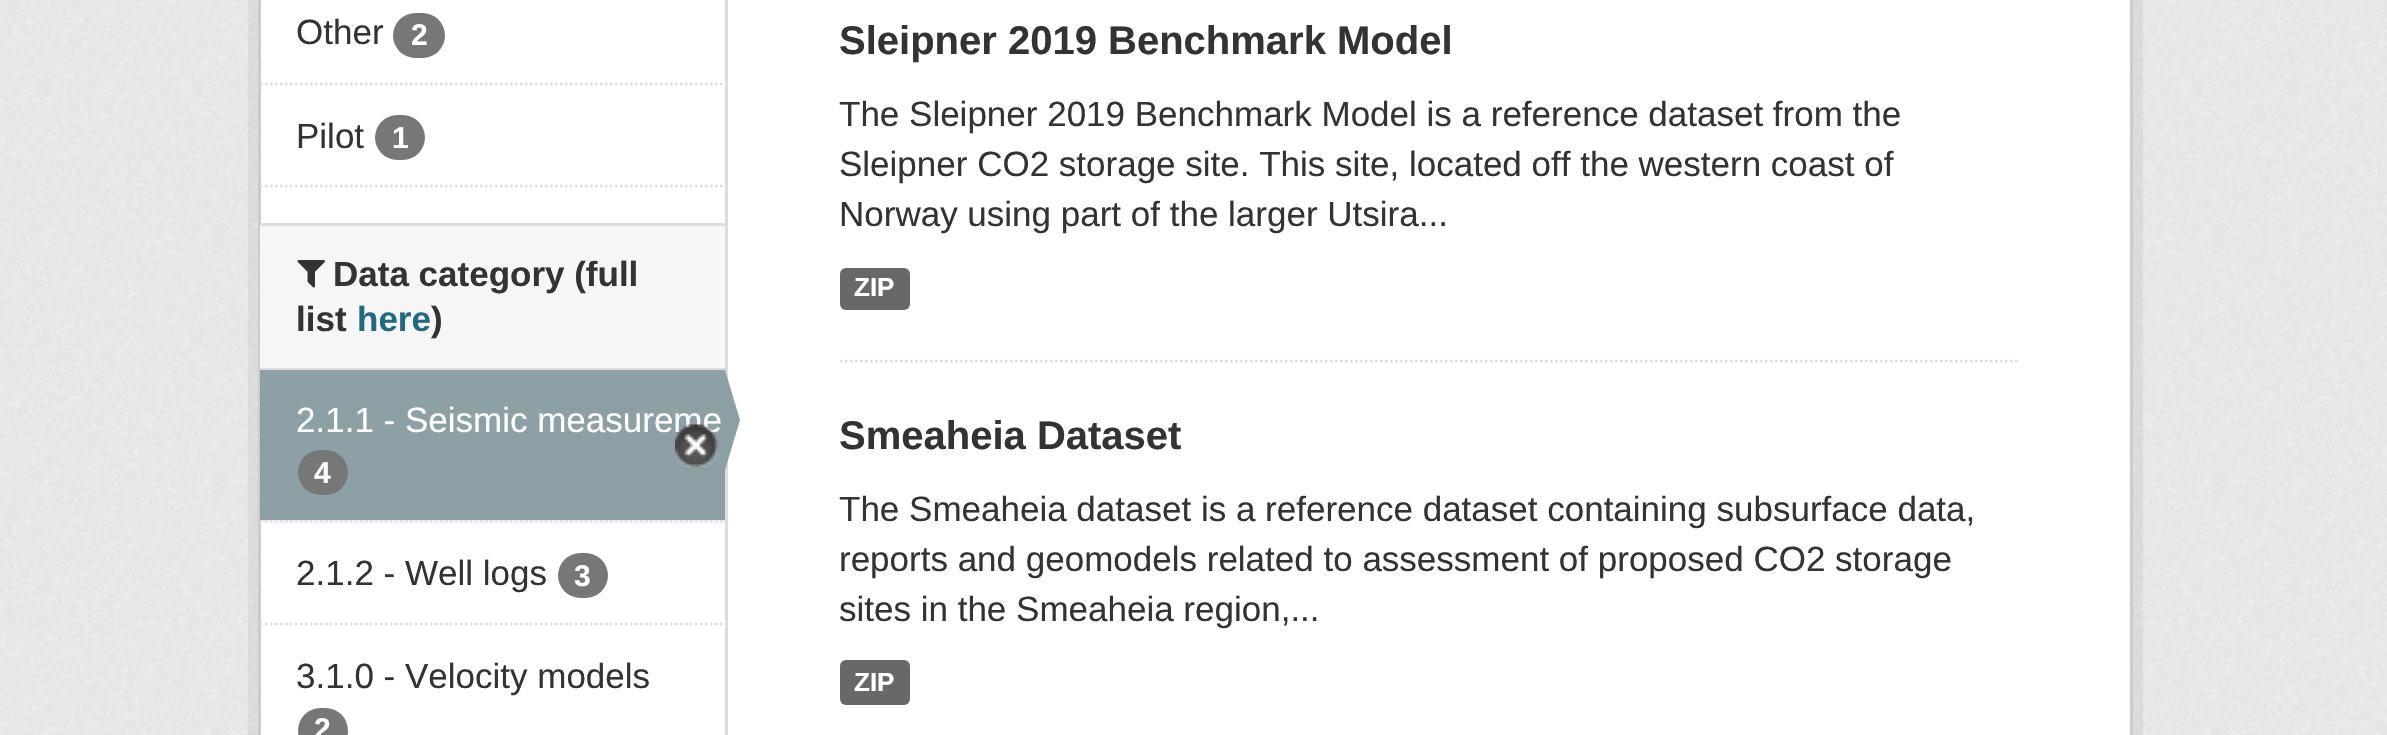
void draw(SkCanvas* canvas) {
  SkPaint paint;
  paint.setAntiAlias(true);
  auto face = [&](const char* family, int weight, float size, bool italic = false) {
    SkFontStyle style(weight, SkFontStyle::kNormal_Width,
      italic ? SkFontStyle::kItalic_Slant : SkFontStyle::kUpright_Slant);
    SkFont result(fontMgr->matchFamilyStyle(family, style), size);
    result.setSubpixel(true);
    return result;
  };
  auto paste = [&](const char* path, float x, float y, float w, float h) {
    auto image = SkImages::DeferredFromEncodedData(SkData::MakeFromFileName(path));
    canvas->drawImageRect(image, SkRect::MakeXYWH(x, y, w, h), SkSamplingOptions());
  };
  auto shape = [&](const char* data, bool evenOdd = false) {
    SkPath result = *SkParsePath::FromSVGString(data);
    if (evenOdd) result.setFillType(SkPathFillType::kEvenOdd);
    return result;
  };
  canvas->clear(0xffeeeeee);
  paste("img/1.png", 0, 0, 2387, 735);
  paint.setStroke(true);
  paint.setStrokeWidth(10);
  paint.setColor(0x0d000000);
  canvas->drawRect(SkRect::MakeXYWH(253, -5, 1885, 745), paint);
  paint.setStroke(false);
  paint.setColor(0xffffffff);
  canvas->drawRect(SkRect::MakeXYWH(259.5f, -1.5f, 1872, 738), paint);
  paint.setStroke(true);
  paint.setStrokeWidth(3);
  paint.setColor(0xffcccccc);
  canvas->drawRect(SkRect::MakeXYWH(259.5f, -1.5f, 1872, 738), paint);
  paint.setStrokeWidth(2.5f);
  paint.setColor(0xffdddddd);
  paint.setPathEffect(SkDashPathEffect::Make({{2.5f, 2.5f}}, 0));
  canvas->drawPath(shape("M260 84H725"), paint);
  paint.setPathEffect(nullptr);
  paint.setStroke(false);
  paint.setColor(0xff777777);
  canvas->drawRoundRect(SkRect::MakeXYWH(393, 13, 52, 45), 22.5f, 22.5f, paint);
  canvas->drawRoundRect(SkRect::MakeXYWH(375, 115, 50, 45), 22.5f, 22.5f, paint);
  paint.setStroke(true);
  paint.setColor(0xffdddddd);
  paint.setPathEffect(SkDashPathEffect::Make({{2.5f, 2.5f}}, 0));
  canvas->drawPath(shape("M260 186H725"), paint);
  paint.setPathEffect(nullptr);
  paint.setStroke(false);
  {
    const struct { float x, y, w, h; SkColor color; } items[] = {
      {260, 226, 465, 142, 0xfff6f6f6},
      {260, 223, 465, 3, 0xffdddddd},
      {260, 368, 465, 2, 0xffdddddd},
    };
    for (auto [x, y, w, h, color] : items) {
      paint.setColor(color);
      canvas->drawRect(SkRect::MakeXYWH(x, y, w, h), paint);
    }
  }
  paste("img/2.png", 297, 260, 28, 28);
  paint.setColor(0xfff6f6f6);
  canvas->drawRect(SkRect::MakeXYWH(260, 520, 465, 3), paint);
  paint.setStroke(true);
  paint.setColor(0xffdddddd);
  paint.setPathEffect(SkDashPathEffect::Make({{2.5f, 2.5f}}, 0));
  canvas->drawPath(shape("M260 521H725"), paint);
  paint.setPathEffect(nullptr);
  paint.setStroke(false);
  paint.setColor(0xff8ca0a6);
  canvas->drawRect(SkRect::MakeXYWH(260, 370, 465, 150), paint);
  paint.setColor(0xffdddddd);
  canvas->drawRect(SkRect::MakeXYWH(725, 0, 3, 735), paint);
  paint.setColor(0xff8ca0a6);
  canvas->drawPath(shape("M725 470V370L740 420Z"), paint);
  paint.setColor(0xff777777);
  canvas->drawRoundRect(SkRect::MakeXYWH(298, 450, 50, 45), 22.5f, 22.5f, paint);
  paint.setStroke(true);
  paint.setColor(0xffdddddd);
  paint.setPathEffect(SkDashPathEffect::Make({{2.5f, 2.5f}}, 0));
  canvas->drawPath(shape("M260 624H725"), paint);
  paint.setPathEffect(nullptr);
  paint.setStroke(false);
  paint.setColor(0xff777777);
  canvas->drawRoundRect(SkRect::MakeXYWH(558, 553, 50, 45), 22.5f, 22.5f, paint);
  canvas->drawRoundRect(SkRect::MakeXYWH(298, 708, 50, 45), 22.5f, 22.5f, paint);
  paint.setStroke(true);
  paint.setColor(0xffdddddd);
  paint.setPathEffect(SkDashPathEffect::Make({{2.5f, 2.5f}}, 0));
  canvas->drawPath(shape("M840 361H2017.5"), paint);
  paint.setPathEffect(nullptr);
  paint.setStroke(false);
  paint.setColor(0xff686868);
  canvas->drawRoundRect(SkRect::MakeXYWH(840, 268, 70, 42), 6, 6, paint);
  canvas->drawRoundRect(SkRect::MakeXYWH(840, 660, 70, 45), 6, 6, paint);
  auto f0 = face("Liberation Sans", 400, 35);
  paint.setColor(0xff333333);
  canvas->drawString("Other", 296, 44, f0, paint);
  auto f1 = face("Liberation Sans", 700, 30);
  paint.setColor(0xffffffff);
  canvas->drawString("2", 411, 45, f1, paint);
  paint.setColor(0xff333333);
  canvas->drawString("Pilot", 296, 148, f0, paint);
  paint.setColor(0xffffffff);
  canvas->drawString("1", 392, 148, f1, paint);
  auto f2 = face("Liberation Sans", 700, 35);
  paint.setColor(0xff333333);
  canvas->drawString("Data category (full", 333, 286, f2, paint);
  canvas->drawString("list", 296, 331, f2, paint);
  paint.setColor(0xff206b82);
  canvas->drawString("here", 357, 331, f2, paint);
  paint.setColor(0xff333333);
  canvas->drawString(")", 431, 331, f2, paint);
  paint.setColor(0xffffffff);
  canvas->drawString("2.1.1 - Seismic measureme", 296, 432, f0, paint);
  paste("img/3.png", 675, 424, 43, 43);
  canvas->drawString("4", 314, 483, f1, paint);
  paint.setColor(0xff333333);
  canvas->drawString("2.1.2 - Well logs", 296, 585, f0, paint);
  paint.setColor(0xffffffff);
  canvas->drawString("3", 574, 586, f1, paint);
  paint.setColor(0xff333333);
  canvas->drawString("3.1.0 - Velocity models", 296, 688, f0, paint);
  paint.setColor(0xffffffff);
  canvas->drawString("2", 314, 739, f1, paint);
  auto f3 = face("Liberation Sans", 700, 40);
  paint.setColor(0xff333333);
  canvas->drawString("Sleipner 2019 Benchmark Model", 839, 54, f3, paint);
  {
    const struct { const char* s; float x, y; } items[] = {
      {"The Sleipner 2019 Benchmark Model is a reference dataset from the", 839, 126},
      {"Sleipner CO2 storage site. This site, located off the western coast of", 839, 176},
      {"Norway using part of the larger Utsira...", 839, 226},
    };
    for (auto [s, x, y] : items) {
      canvas->drawString(s, x, y, f0, paint);
    }
  }
  auto f4 = face("Liberation Sans", 700, 26);
  paint.setColor(0xffffffff);
  canvas->drawString("ZIP", 854, 296, f4, paint);
  paint.setColor(0xff333333);
  canvas->drawString("Smeaheia Dataset", 839, 449, f3, paint);
  {
    const struct { const char* s; float x, y; } items[] = {
      {"The Smeaheia dataset is a reference dataset containing subsurface data,", 839, 521},
      {"reports and geomodels related to assessment of proposed CO2 storage", 839, 571},
      {"sites in the Smeaheia region,...", 839, 621},
    };
    for (auto [s, x, y] : items) {
      canvas->drawString(s, x, y, f0, paint);
    }
  }
  paint.setColor(0xffffffff);
  canvas->drawString("ZIP", 854, 691, f4, paint);
}
